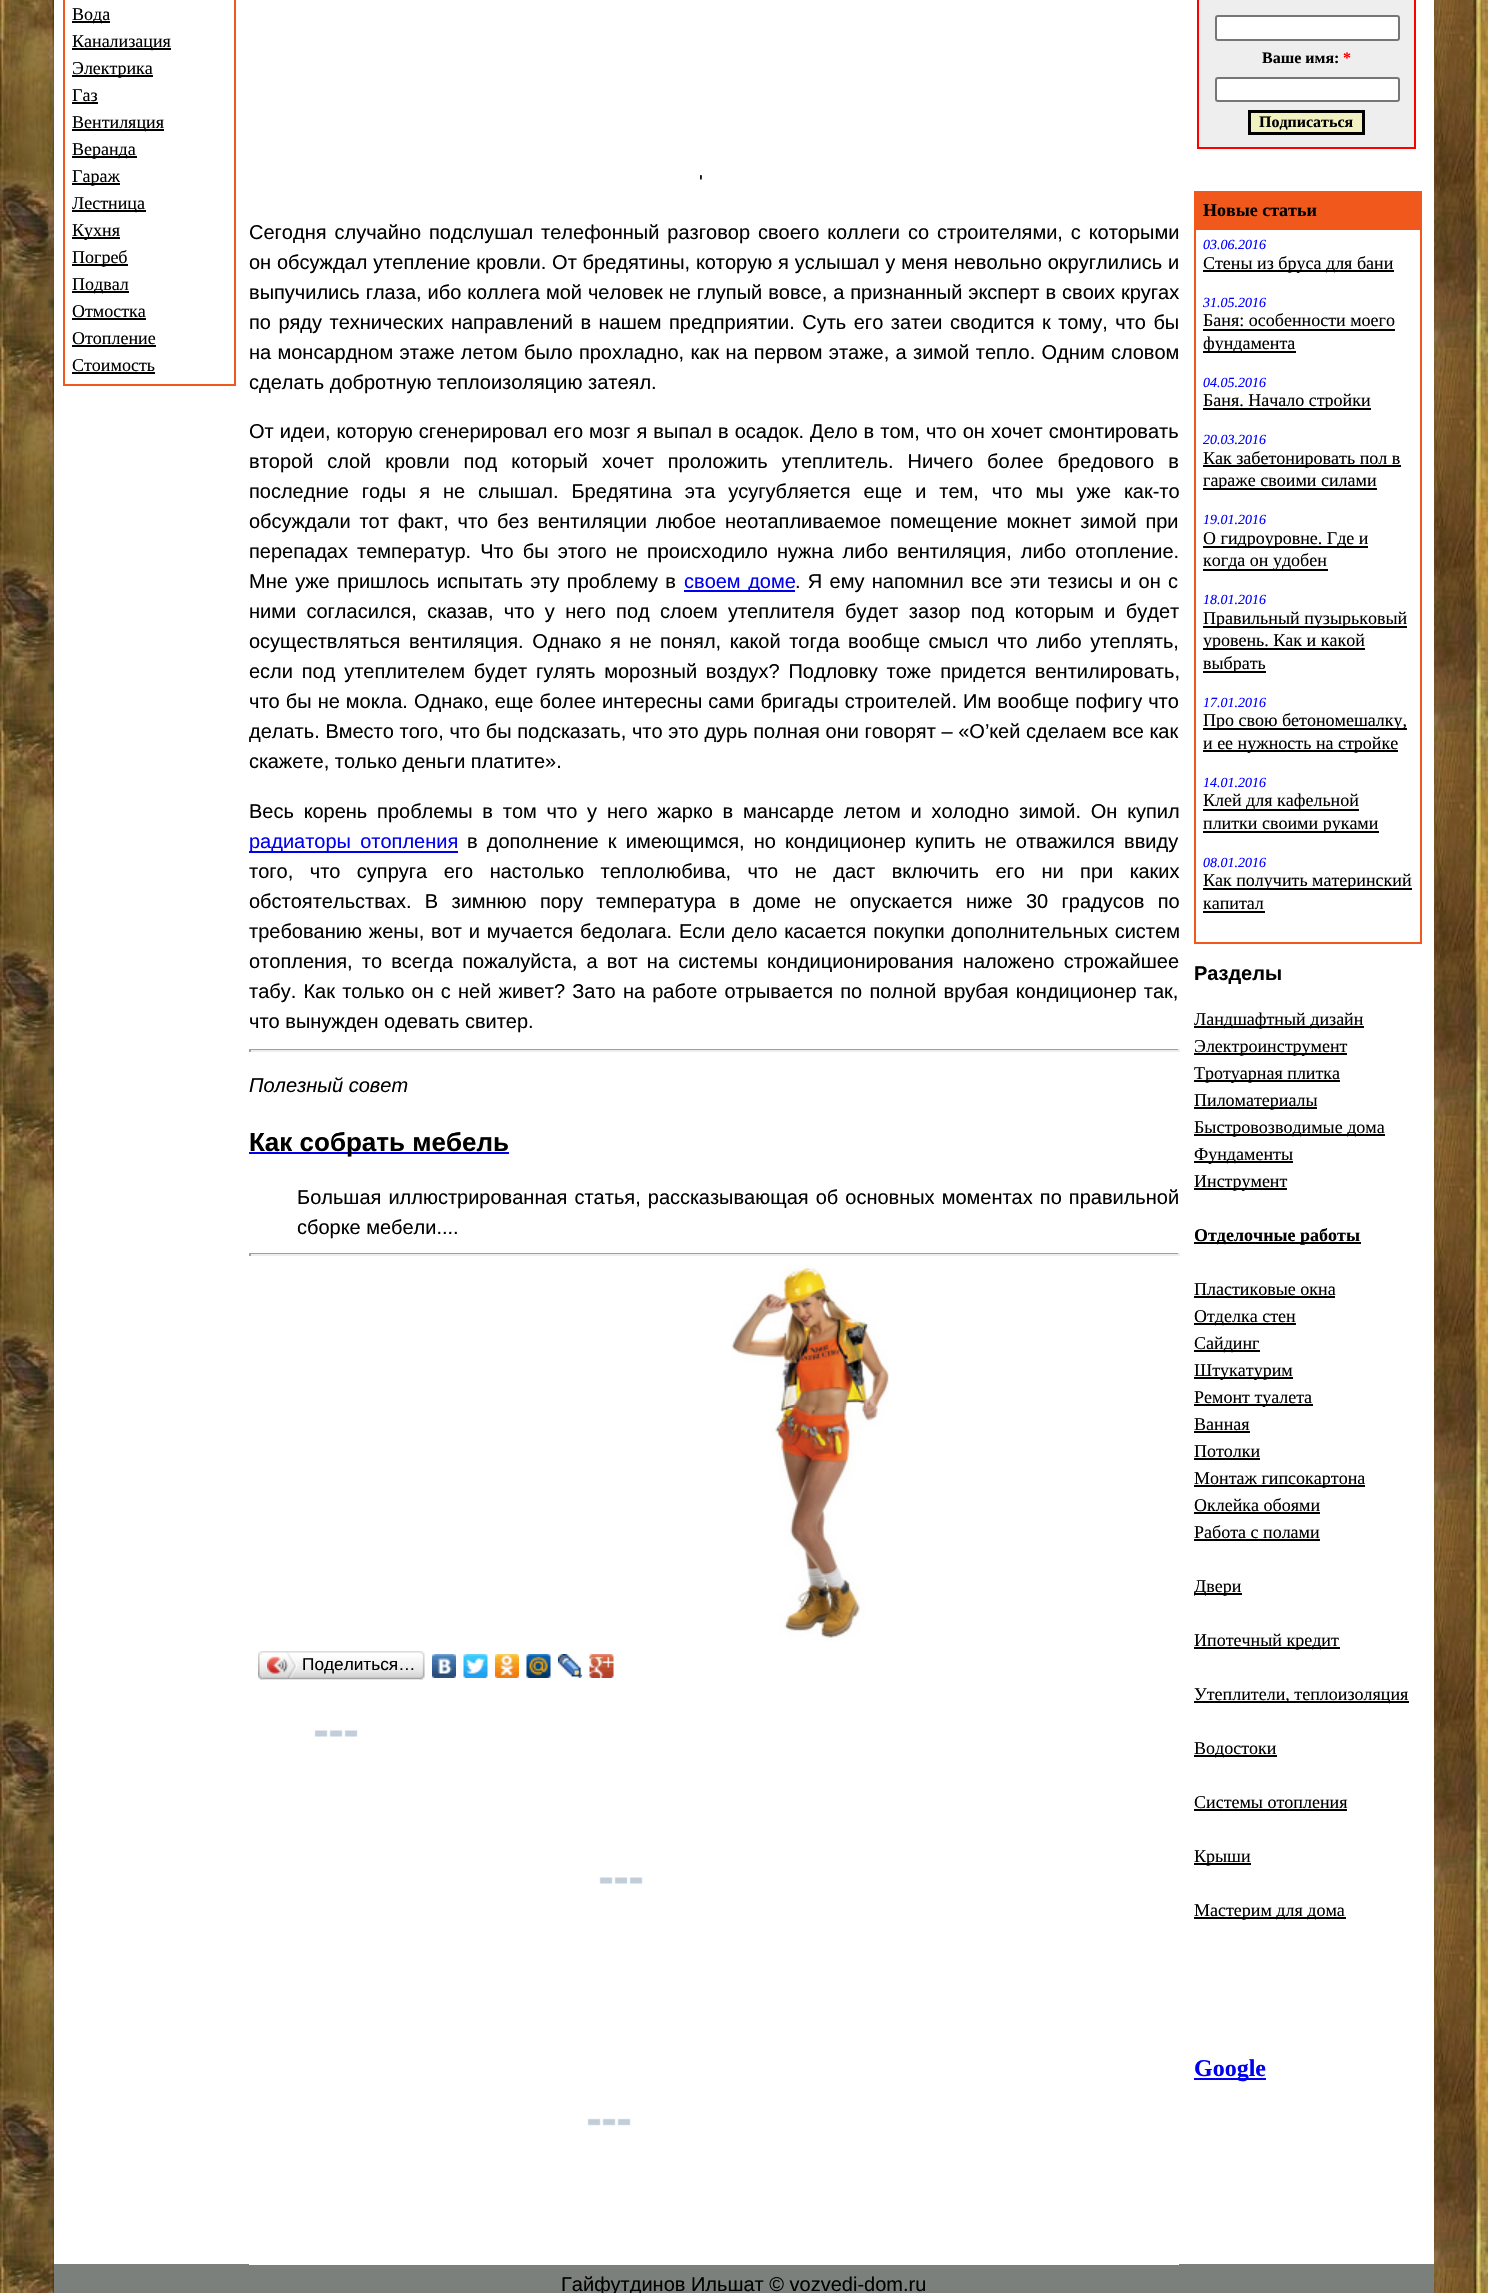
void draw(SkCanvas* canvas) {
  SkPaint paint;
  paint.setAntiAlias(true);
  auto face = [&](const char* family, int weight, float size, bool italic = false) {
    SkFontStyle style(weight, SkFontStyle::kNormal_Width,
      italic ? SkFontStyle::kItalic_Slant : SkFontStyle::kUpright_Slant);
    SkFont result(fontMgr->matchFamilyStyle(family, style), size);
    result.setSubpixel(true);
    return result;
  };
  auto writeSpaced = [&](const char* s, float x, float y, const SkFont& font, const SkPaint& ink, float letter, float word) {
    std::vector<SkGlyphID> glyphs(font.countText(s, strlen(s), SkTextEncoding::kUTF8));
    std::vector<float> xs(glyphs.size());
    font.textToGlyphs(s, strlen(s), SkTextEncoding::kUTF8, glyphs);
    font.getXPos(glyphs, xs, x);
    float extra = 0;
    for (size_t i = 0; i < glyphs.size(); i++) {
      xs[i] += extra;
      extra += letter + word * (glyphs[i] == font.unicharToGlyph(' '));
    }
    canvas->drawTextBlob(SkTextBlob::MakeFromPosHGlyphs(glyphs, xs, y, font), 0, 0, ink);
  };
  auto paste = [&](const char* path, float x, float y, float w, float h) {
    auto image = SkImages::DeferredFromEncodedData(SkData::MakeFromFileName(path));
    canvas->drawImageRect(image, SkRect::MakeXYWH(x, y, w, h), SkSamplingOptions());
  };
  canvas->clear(0xffffffff);
  paste("img/1.png", 0, 0, 1488, 2293);
  paint.setColor(0xffffffff);
  canvas->drawRect(SkRect::MakeXYWH(54, 0, 1380, 2264), paint);
  paint.setStroke(true);
  paint.setStrokeWidth(2);
  paint.setColor(0xfff0591b);
  canvas->drawRect(SkRect::MakeXYWH(64, -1, 171, 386), paint);
  paint.setStroke(false);
  {
    const struct { float x, y, w, h; SkColor color; } items[] = {
      {72, 21, 38, 2, 0xff000000},
      {72, 48, 99, 2, 0xff000000},
      {72, 75, 81, 2, 0xff000000},
      {72, 102, 26, 2, 0xff000000},
      {72, 129, 92, 2, 0xff000000},
      {72, 156, 65, 2, 0xff000000},
      {72, 183, 48, 2, 0xff000000},
      {72, 210, 74, 2, 0xff000000},
      {72, 237, 48, 2, 0xff000000},
      {72, 264, 56, 2, 0xff000000},
      {72, 291, 57, 2, 0xff000000},
      {72, 318, 74, 2, 0xff000000},
      {72, 345, 84, 2, 0xff000000},
      {72, 372, 83, 2, 0xff000000},
      {54, 2264, 1380, 29, 0xff7b807c},
      {249, 2264, 930, 1, 0xffffffff},
      {684, 590, 111, 2, 0xff0000ee},
      {249, 851, 209, 2, 0xff0000ee},
      {249, 1049, 930, 1, 0xff9f9f9f},
      {1178, 1049, 2, 3, 0xffeeeeee},
      {249, 1050, 930, 2, 0xffeeeeee},
      {249, 1049, 2, 3, 0xff9f9f9f},
      {249, 1152, 260, 2, 0xff0000ee},
      {249, 1253, 930, 1, 0xff9f9f9f},
      {1178, 1253, 2, 3, 0xffeeeeee},
      {249, 1254, 930, 2, 0xffeeeeee},
      {249, 1253, 2, 3, 0xff9f9f9f},
    };
    for (auto [x, y, w, h, color] : items) {
      paint.setColor(color);
      canvas->drawRect(SkRect::MakeXYWH(x, y, w, h), paint);
    }
  }
  paste("img/2.png", 731, 1265, 158, 376);
  paste("img/3.png", 262, 1651, 158, 29);
  paste("img/4.png", 258, 1651, 5, 29);
  paste("img/5.png", 267, 1652, 30, 26);
  paste("img/6.png", 420, 1651, 5, 29);
  paste("img/7.png", 432, 1654, 24, 24);
  paste("img/8.png", 463, 1654, 25, 24);
  paste("img/9.png", 495, 1654, 24, 24);
  paste("img/10.png", 526, 1654, 25, 24);
  paste("img/11.png", 558, 1654, 24, 24);
  paste("img/12.png", 589, 1654, 25, 24);
  paste("img/13.png", 314, 1730, 44, 7);
  paste("img/13.png", 599, 1877, 44, 7);
  paste("img/14.png", 587, 2118, 44, 8);
  paint.setColor(0xffeeeeee);
  canvas->drawRect(SkRect::MakeXYWH(1198, -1, 217, 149), paint);
  paint.setStroke(true);
  paint.setColor(0xffff0000);
  canvas->drawRect(SkRect::MakeXYWH(1198, -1, 217, 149), paint);
  paint.setStroke(false);
  paint.setColor(0xffffffff);
  canvas->drawRoundRect(SkRect::MakeXYWH(1216, 16, 183, 24), 2, 2, paint);
  paint.setStroke(true);
  paint.setColor(0xff767676);
  canvas->drawRoundRect(SkRect::MakeXYWH(1216, 16, 183, 24), 2, 2, paint);
  paint.setStroke(false);
  paint.setColor(0xffffffff);
  canvas->drawRoundRect(SkRect::MakeXYWH(1216, 78, 183, 23), 2, 2, paint);
  paint.setStroke(true);
  paint.setColor(0xff767676);
  canvas->drawRoundRect(SkRect::MakeXYWH(1216, 78, 183, 23), 2, 2, paint);
  paint.setStroke(false);
  paint.setColor(0xfff0f0c0);
  canvas->drawRect(SkRect::MakeXYWH(1249.5f, 111.5f, 114, 22), paint);
  paint.setStroke(true);
  paint.setStrokeWidth(3);
  paint.setColor(0xff000000);
  canvas->drawRect(SkRect::MakeXYWH(1249.5f, 111.5f, 114, 22), paint);
  paint.setStrokeWidth(2);
  paint.setColor(0xfff0591b);
  canvas->drawRect(SkRect::MakeXYWH(1195, 192, 226, 751), paint);
  paint.setStroke(false);
  {
    const struct { float x, y, w, h; SkColor color; } items[] = {
      {1196, 193, 224, 37, 0xfff0591b},
      {1203, 270, 191, 2, 0xff000000},
      {1203, 329, 192, 2, 0xff000000},
      {1203, 351, 93, 2, 0xff000000},
      {1203, 408, 168, 2, 0xff000000},
      {1203, 465, 198, 2, 0xff000000},
      {1203, 488, 174, 2, 0xff000000},
      {1203, 546, 165, 2, 0xff000000},
      {1203, 569, 125, 2, 0xff000000},
      {1203, 626, 204, 2, 0xff000000},
      {1203, 648, 162, 2, 0xff000000},
      {1203, 671, 63, 2, 0xff000000},
      {1203, 728, 204, 2, 0xff000000},
      {1203, 750, 195, 2, 0xff000000},
      {1203, 809, 156, 2, 0xff000000},
      {1203, 831, 176, 2, 0xff000000},
      {1203, 888, 209, 2, 0xff000000},
      {1203, 911, 62, 2, 0xff000000},
      {1194, 1026, 170, 2, 0xff000000},
      {1194, 1053, 153, 2, 0xff000000},
      {1194, 1080, 146, 2, 0xff000000},
      {1194, 1107, 123, 2, 0xff000000},
      {1194, 1134, 191, 2, 0xff000000},
      {1194, 1161, 99, 2, 0xff000000},
      {1194, 1188, 93, 2, 0xff000000},
      {1194, 1242, 167, 2, 0xff000000},
      {1194, 1296, 141, 2, 0xff000000},
      {1194, 1323, 102, 2, 0xff000000},
      {1194, 1350, 66, 2, 0xff000000},
      {1194, 1377, 99, 2, 0xff000000},
      {1194, 1404, 119, 2, 0xff000000},
      {1194, 1431, 56, 2, 0xff000000},
      {1194, 1458, 66, 2, 0xff000000},
      {1194, 1485, 171, 2, 0xff000000},
      {1194, 1512, 126, 2, 0xff000000},
      {1194, 1539, 126, 2, 0xff000000},
      {1194, 1593, 48, 2, 0xff000000},
      {1194, 1647, 146, 2, 0xff000000},
      {1194, 1701, 215, 2, 0xff000000},
      {1194, 1755, 83, 2, 0xff000000},
      {1194, 1809, 153, 2, 0xff000000},
      {1194, 1863, 57, 2, 0xff000000},
      {1194, 1917, 152, 2, 0xff000000},
      {1194, 2078, 72, 2, 0xff0000ee},
    };
    for (auto [x, y, w, h, color] : items) {
      paint.setColor(color);
      canvas->drawRect(SkRect::MakeXYWH(x, y, w, h), paint);
    }
  }
  auto f0 = face("Liberation Serif", 400, 18);
  paint.setColor(0xff000000);
  {
    const struct { const char* s; float x, y; } items[] = {
      {"Вода", 72, 20},
      {"Канализация", 72, 47},
      {"Электрика", 72, 74},
      {"Газ", 72, 101},
      {"Вентиляция", 72, 128},
      {"Веранда", 72, 155},
      {"Гараж", 72, 182},
      {"Лестница", 72, 209},
      {"Кухня", 72, 236},
      {"Погреб", 72, 263},
      {"Подвал", 72, 290},
      {"Отмостка", 72, 317},
      {"Отопление", 72, 344},
      {"Стоимость", 72, 371},
    };
    for (auto [s, x, y] : items) {
      canvas->drawString(s, x, y, f0, paint);
    }
  }
  auto f1 = face("Liberation Sans", 400, 20);
  canvas->drawString("'", 699, 189, f1, paint);
  writeSpaced("Сегодня случайно подслушал телефонный разговор своего коллеги со строителями, с которыми", 249, 239, f1, paint, 0, 2.4f);
  writeSpaced("он обсуждал утепление кровли. От бредятины, которую я услышал у меня невольно округлились и", 249, 269, f1, paint, 0, 0.25f);
  writeSpaced("выпучились глаза, ибо коллега мой человек не глупый вовсе, а признанный эксперт в своих кругах", 249, 299, f1, paint, 0, 0.4f);
  writeSpaced("по ряду технических направлений в нашем предприятии. Суть его затеи сводится к тому, что бы", 249, 329, f1, paint, 0, 1.9f);
  writeSpaced("на монсардном этаже летом было прохладно, как на первом этаже, а зимой тепло. Одним словом", 249, 359, f1, paint, 0, 0.75f);
  canvas->drawString("сделать добротную теплоизоляцию затеял.", 249, 389, f1, paint);
  writeSpaced("От идеи, которую сгенерировал его мозг я выпал в осадок. Дело в том, что он хочет смонтировать", 249, 438, f1, paint, 0, 0.5f);
  writeSpaced("второй слой кровли под который хочет проложить утеплитель. Ничего более бредового в", 249, 468, f1, paint, 0, 8.4f);
  writeSpaced("последние годы я не слышал. Бредятина эта усугубляется еще и тем, что мы уже как-то", 249, 498, f1, paint, 0, 7.4f);
  writeSpaced("обсуждали тот факт, что без вентиляции любое неотапливаемое помещение мокнет зимой при", 249, 528, f1, paint, 0, 3.25f);
  writeSpaced("перепадах температур. Что бы этого не происходило нужна либо вентиляция, либо отопление.", 249, 558, f1, paint, 0, 3.5f);
  writeSpaced("Мне уже пришлось испытать эту проблему в", 249, 588, f1, paint, 0, 1.75f);
  paint.setColor(0xff0000ee);
  writeSpaced("своем доме", 684, 588, f1, paint, 0, 2);
  paint.setColor(0xff000000);
  writeSpaced(". Я ему напомнил все эти тезисы и он с", 795, 588, f1, paint, 0, 1.75f);
  writeSpaced("ними согласился, сказав, что у него под слоем утеплителя будет зазор под которым и будет", 249, 618, f1, paint, 0, 4.75f);
  writeSpaced("осуществляться вентиляция. Однако я не понял, какой тогда вообще смысл что либо утеплять,", 249, 648, f1, paint, 0, 3);
  writeSpaced("если под утеплителем будет гулять морозный воздух? Подловку тоже придется вентилировать,", 249, 678, f1, paint, 0, 3.25f);
  writeSpaced("что бы не мокла. Однако, еще более интересны сами бригады строителей. Им вообще пофигу что", 249, 708, f1, paint, 0, 0.5f);
  writeSpaced("делать. Вместо того, что бы подсказать, что это дурь полная они говорят – «О’кей сделаем все как", 249, 738, f1, paint, 0, 0.1f);
  canvas->drawString("скажете, только деньги платите».", 249, 768, f1, paint);
  writeSpaced("Весь корень проблемы в том что у него жарко в мансарде летом и холодно зимой. Он купил", 249, 818, f1, paint, 0, 4.25f);
  paint.setColor(0xff0000ee);
  writeSpaced("радиаторы отопления", 249, 848, f1, paint, 0, 3.6f);
  paint.setColor(0xff000000);
  writeSpaced("в дополнение к имеющимся, но кондиционер купить не отважился ввиду", 467, 848, f1, paint, 0, 3.6f);
  writeSpaced("того, что супруга его настолько теплолюбива, что не даст включить его ни при каких", 249, 878, f1, paint, 0, 10.9f);
  writeSpaced("обстоятельствах. В зимнюю пору температура в доме не опускается ниже 30 градусов по", 249, 908, f1, paint, 0, 7.75f);
  writeSpaced("требованию жены, вот и мучается бедолага. Если дело касается покупки дополнительных систем", 249, 938, f1, paint, 0, 1.25f);
  writeSpaced("отопления, то всегда пожалуйста, а вот на системы кондиционирования наложено строжайшее", 249, 968, f1, paint, 0, 3.6f);
  writeSpaced("табу. Как только он с ней живет? Зато на работе отрывается по полной врубая кондиционер так,", 249, 998, f1, paint, 0, 1.6f);
  canvas->drawString("что вынужден одевать свитер.", 249, 1028, f1, paint);
  auto f2 = face("Liberation Sans", 400, 20, true);
  canvas->drawString("Полезный совет", 249, 1092, f2, paint);
  auto f3 = face("Liberation Sans", 700, 26);
  canvas->drawString("Как собрать мебель", 249, 1151, f3, paint);
  writeSpaced("Большая иллюстрированная статья, рассказывающая об основных моментах по правильной", 297, 1204, f1, paint, 0, 1.5f);
  canvas->drawString("сборке мебели....", 297, 1234, f1, paint);
  auto f4 = face("Liberation Sans", 400, 17.25f);
  canvas->drawString("Поделиться…", 302, 1670, f4, paint);
  auto f5 = face("Liberation Serif", 700, 16);
  canvas->drawString("Ваше имя:", 1262, 63, f5, paint);
  paint.setColor(0xffff0000);
  canvas->drawString("*", 1343, 63, f5, paint);
  paint.setColor(0xff000000);
  canvas->drawString("Подписаться", 1259, 127, f5, paint);
  auto f6 = face("Liberation Serif", 700, 18);
  canvas->drawString("Новые статьи", 1203, 216, f6, paint);
  auto f7 = face("Liberation Serif", 400, 14, true);
  paint.setColor(0xff0000ff);
  canvas->drawString("03.06.2016", 1203, 249, f7, paint);
  paint.setColor(0xff000000);
  canvas->drawString("Стены из бруса для бани", 1203, 269, f0, paint);
  paint.setColor(0xff0000ff);
  canvas->drawString("31.05.2016", 1203, 307, f7, paint);
  paint.setColor(0xff000000);
  canvas->drawString("Баня: особенности моего", 1203, 326, f0, paint);
  canvas->drawString("фундамента", 1203, 349, f0, paint);
  paint.setColor(0xff0000ff);
  canvas->drawString("04.05.2016", 1203, 387, f7, paint);
  paint.setColor(0xff000000);
  canvas->drawString("Баня. Начало стройки", 1203, 406, f0, paint);
  paint.setColor(0xff0000ff);
  canvas->drawString("20.03.2016", 1203, 444, f7, paint);
  paint.setColor(0xff000000);
  canvas->drawString("Как забетонировать пол в", 1203, 464, f0, paint);
  canvas->drawString("гараже своими силами", 1203, 486, f0, paint);
  paint.setColor(0xff0000ff);
  canvas->drawString("19.01.2016", 1203, 524, f7, paint);
  paint.setColor(0xff000000);
  canvas->drawString("О гидроуровне. Где и", 1203, 544, f0, paint);
  canvas->drawString("когда он удобен", 1203, 566, f0, paint);
  paint.setColor(0xff0000ff);
  canvas->drawString("18.01.2016", 1203, 604, f7, paint);
  paint.setColor(0xff000000);
  {
    const struct { const char* s; float x, y; } items[] = {
      {"Правильный пузырьковый", 1203, 624},
      {"уровень. Как и какой", 1203, 646},
      {"выбрать", 1203, 669},
    };
    for (auto [s, x, y] : items) {
      canvas->drawString(s, x, y, f0, paint);
    }
  }
  paint.setColor(0xff0000ff);
  canvas->drawString("17.01.2016", 1203, 707, f7, paint);
  paint.setColor(0xff000000);
  canvas->drawString("Про свою бетономешалку,", 1203, 726, f0, paint);
  canvas->drawString("и ее нужность на стройке", 1203, 749, f0, paint);
  paint.setColor(0xff0000ff);
  canvas->drawString("14.01.2016", 1203, 787, f7, paint);
  paint.setColor(0xff000000);
  canvas->drawString("Клей для кафельной", 1203, 806, f0, paint);
  canvas->drawString("плитки своими руками", 1203, 829, f0, paint);
  paint.setColor(0xff0000ff);
  canvas->drawString("08.01.2016", 1203, 867, f7, paint);
  paint.setColor(0xff000000);
  canvas->drawString("Как получить материнский", 1203, 886, f0, paint);
  canvas->drawString("капитал", 1203, 909, f0, paint);
  auto f8 = face("Liberation Sans", 700, 20);
  canvas->drawString("Разделы", 1194, 980, f8, paint);
  {
    const struct { const char* s; float x, y; } items[] = {
      {"Ландшафтный дизайн", 1194, 1025},
      {"Электроинструмент", 1194, 1052},
      {"Тротуарная плитка", 1194, 1079},
      {"Пиломатериалы", 1194, 1106},
      {"Быстровозводимые дома", 1194, 1133},
      {"Фундаменты", 1194, 1160},
      {"Инструмент", 1194, 1187},
    };
    for (auto [s, x, y] : items) {
      canvas->drawString(s, x, y, f0, paint);
    }
  }
  canvas->drawString("Отделочные работы", 1194, 1241, f6, paint);
  {
    const struct { const char* s; float x, y; } items[] = {
      {"Пластиковые окна", 1194, 1295},
      {"Отделка стен", 1194, 1322},
      {"Сайдинг", 1194, 1349},
      {"Штукатурим", 1194, 1376},
      {"Ремонт туалета", 1194, 1403},
      {"Ванная", 1194, 1430},
      {"Потолки", 1194, 1457},
      {"Монтаж гипсокартона", 1194, 1484},
      {"Оклейка обоями", 1194, 1511},
      {"Работа с полами", 1194, 1538},
      {"Двери", 1194, 1592},
      {"Ипотечный кредит", 1194, 1646},
      {"Утеплители, теплоизоляция", 1194, 1700},
      {"Водостоки", 1194, 1754},
      {"Системы отопления", 1194, 1808},
      {"Крыши", 1194, 1862},
      {"Мастерим для дома", 1194, 1916},
    };
    for (auto [s, x, y] : items) {
      canvas->drawString(s, x, y, f0, paint);
    }
  }
  auto f9 = face("Liberation Serif", 700, 24);
  paint.setColor(0xff0000ee);
  canvas->drawString("Google", 1194, 2076, f9, paint);
  paint.setColor(0xff000000);
  canvas->drawString("Гайфутдинов Ильшат © vozvedi-dom.ru", 561, 2291, f1, paint);
}
